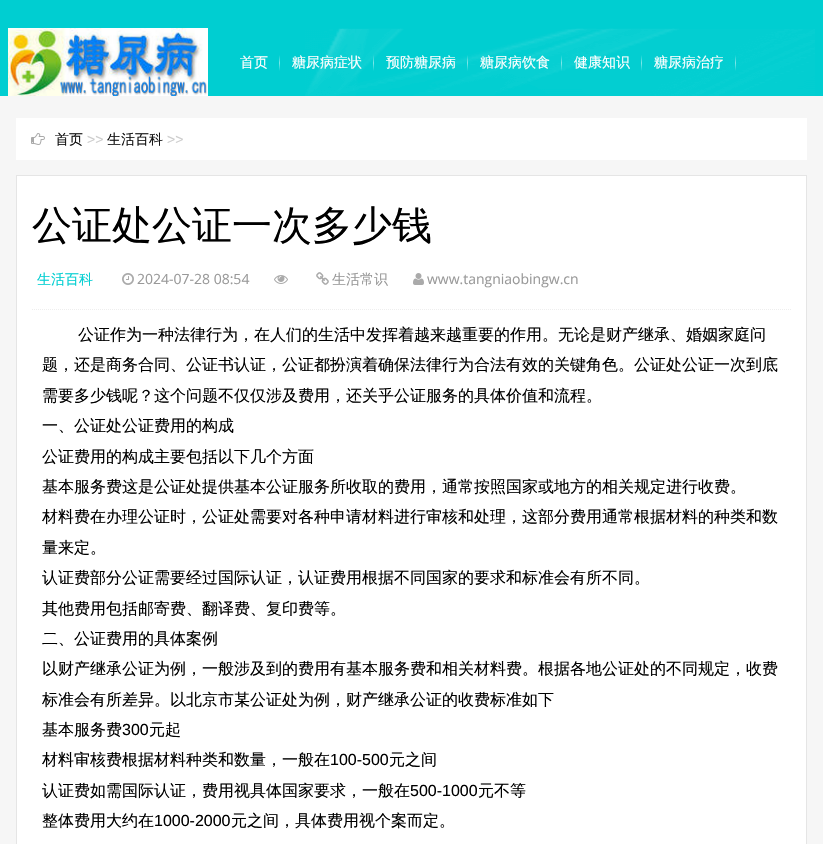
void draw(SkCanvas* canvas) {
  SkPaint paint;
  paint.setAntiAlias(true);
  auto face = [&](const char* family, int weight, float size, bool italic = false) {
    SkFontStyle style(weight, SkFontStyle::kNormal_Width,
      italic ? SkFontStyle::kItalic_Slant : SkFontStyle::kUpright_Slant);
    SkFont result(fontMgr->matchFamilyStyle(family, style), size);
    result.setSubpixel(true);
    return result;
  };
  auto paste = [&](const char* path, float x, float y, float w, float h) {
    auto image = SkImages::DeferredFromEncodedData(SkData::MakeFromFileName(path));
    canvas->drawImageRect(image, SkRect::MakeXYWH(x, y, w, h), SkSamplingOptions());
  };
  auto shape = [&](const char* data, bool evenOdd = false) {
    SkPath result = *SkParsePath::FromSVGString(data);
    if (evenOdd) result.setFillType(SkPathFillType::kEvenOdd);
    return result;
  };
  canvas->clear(0xfff6f6f6);
  paint.setColor(0xff00ced1);
  canvas->drawRect(SkRect::MakeXYWH(0, 0, 823, 96), paint);
  paste("img/1.png", 305, 28, 510, 68);
  paste("img/2.png", 8, 28, 200, 68);
  {
    const SkColor colors[] = {0x00ffffff, 0x80ffffff, 0x00ffffff};
    const float stops[] = {0, 0.5f, 1};
    const SkPoint ends[] = {{280, 55}, {280, 71}};
    paint.setShader(SkGradientShader::MakeLinear(ends, colors, stops, 3, SkTileMode::kClamp));
    paint.setAlpha(255);
  }
  canvas->drawRect(SkRect::MakeXYWH(279, 55, 1, 16), paint);
  {
    const SkColor colors[] = {0x00ffffff, 0x80ffffff, 0x00ffffff};
    const float stops[] = {0, 0.5f, 1};
    const SkPoint ends[] = {{374, 55}, {374, 71}};
    paint.setShader(SkGradientShader::MakeLinear(ends, colors, stops, 3, SkTileMode::kClamp));
    paint.setAlpha(255);
  }
  canvas->drawRect(SkRect::MakeXYWH(373, 55, 1, 16), paint);
  {
    const SkColor colors[] = {0x00ffffff, 0x80ffffff, 0x00ffffff};
    const float stops[] = {0, 0.5f, 1};
    const SkPoint ends[] = {{468, 55}, {468, 71}};
    paint.setShader(SkGradientShader::MakeLinear(ends, colors, stops, 3, SkTileMode::kClamp));
    paint.setAlpha(255);
  }
  canvas->drawRect(SkRect::MakeXYWH(467, 55, 1, 16), paint);
  {
    const SkColor colors[] = {0x00ffffff, 0x80ffffff, 0x00ffffff};
    const float stops[] = {0, 0.5f, 1};
    const SkPoint ends[] = {{562, 55}, {562, 71}};
    paint.setShader(SkGradientShader::MakeLinear(ends, colors, stops, 3, SkTileMode::kClamp));
    paint.setAlpha(255);
  }
  canvas->drawRect(SkRect::MakeXYWH(561, 55, 1, 16), paint);
  {
    const SkColor colors[] = {0xff03cfd2, 0xff81e7e8, 0xff03cfd2};
    const float stops[] = {0, 0.5f, 1};
    const SkPoint ends[] = {{642, 55}, {642, 71}};
    paint.setShader(SkGradientShader::MakeLinear(ends, colors, stops, 3, SkTileMode::kClamp));
    paint.setAlpha(255);
  }
  canvas->drawRect(SkRect::MakeXYWH(641, 55, 1, 16), paint);
  {
    const SkColor colors[] = {0x00ffffff, 0x80ffffff, 0x00ffffff};
    const float stops[] = {0, 0.5f, 1};
    const SkPoint ends[] = {{736, 55}, {736, 71}};
    paint.setShader(SkGradientShader::MakeLinear(ends, colors, stops, 3, SkTileMode::kClamp));
    paint.setAlpha(255);
  }
  canvas->drawRect(SkRect::MakeXYWH(735, 55, 1, 16), paint);
  paint.setShader(nullptr);
  paint.setColor(0xffffffff);
  canvas->drawRect(SkRect::MakeXYWH(16, 118, 791, 42), paint);
  paste("img/3.png", 31, 133, 14, 12);
  canvas->drawRect(SkRect::MakeXYWH(16.5f, 175.5f, 790, 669), paint);
  paint.setStroke(true);
  paint.setStrokeWidth(1);
  paint.setColor(0xffe5e5e5);
  canvas->drawRect(SkRect::MakeXYWH(16.5f, 175.5f, 790, 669), paint);
  paste("img/4.png", 122, 273, 12, 12);
  paste("img/5.png", 274, 275, 14, 9);
  paste("img/6.png", 316, 272, 13, 13);
  paste("img/7.png", 413, 273, 11, 12);
  paint.setColor(0xffeeeeee);
  paint.setPathEffect(SkDashPathEffect::Make({{1, 1}}, 0));
  canvas->drawPath(shape("M32 309.5H791"), paint);
  paint.setPathEffect(nullptr);
  auto f0 = face("WenQuanYi Zen Hei", 500, 14);
  paint.setStroke(false);
  paint.setColor(0xffffffff);
  {
    const struct { const char* s; float x, y; } items[] = {
      {"首页", 240, 67},
      {"糖尿病症状", 292, 67},
      {"预防糖尿病", 386, 67},
      {"糖尿病饮食", 480, 67},
      {"健康知识", 574, 67},
      {"糖尿病治疗", 654, 67},
    };
    for (auto [s, x, y] : items) {
      canvas->drawString(s, x, y, f0, paint);
    }
  }
  paint.setColor(0xff111111);
  canvas->drawString("首页", 55, 144, f0, paint);
  auto f1 = face("Liberation Sans", 400, 14);
  paint.setColor(0xffcccccc);
  canvas->drawString(">>", 87, 144, f1, paint);
  paint.setColor(0xff111111);
  canvas->drawString("生活百科", 107, 144, f0, paint);
  paint.setColor(0xffcccccc);
  canvas->drawString(">>", 167, 144, f1, paint);
  auto f2 = face("WenQuanYi Zen Hei", 500, 40);
  paint.setColor(0xff000000);
  canvas->drawString("公证处公证一次多少钱", 32, 239, f2, paint);
  paint.setColor(0xff00ced1);
  canvas->drawString("生活百科", 37, 284, f0, paint);
  auto f3 = face("Open Sans", 400, 14);
  paint.setColor(0xff999999);
  canvas->drawString("2024-07-28 08:54", 137, 284, f3, paint);
  canvas->drawString("生活常识", 332, 284, f0, paint);
  canvas->drawString("www.tangniaobingw.cn", 427, 284, f3, paint);
  auto f4 = face("WenQuanYi Zen Hei", 500, 16);
  paint.setColor(0xff000000);
  {
    const struct { const char* s; float x, y; } items[] = {
      {"公证作为一种法律行为，在人们的生活中发挥着越来越重要的作用。无论是财产继承、婚姻家庭问", 78, 340},
      {"题，还是商务合同、公证书认证，公证都扮演着确保法律行为合法有效的关键角色。公证处公证一次到底", 42, 370},
      {"需要多少钱呢？这个问题不仅仅涉及费用，还关乎公证服务的具体价值和流程。", 42, 401},
      {"一、公证处公证费用的构成", 42, 431},
      {"公证费用的构成主要包括以下几个方面", 42, 462},
      {"基本服务费这是公证处提供基本公证服务所收取的费用，通常按照国家或地方的相关规定进行收费。", 42, 492},
      {"材料费在办理公证时，公证处需要对各种申请材料进行审核和处理，这部分费用通常根据材料的种类和数", 42, 522},
      {"量来定。", 42, 553},
      {"认证费部分公证需要经过国际认证，认证费用根据不同国家的要求和标准会有所不同。", 42, 583},
      {"其他费用包括邮寄费、翻译费、复印费等。", 42, 614},
      {"二、公证费用的具体案例", 42, 644},
      {"以财产继承公证为例，一般涉及到的费用有基本服务费和相关材料费。根据各地公证处的不同规定，收费", 42, 674},
      {"标准会有所差异。以北京市某公证处为例，财产继承公证的收费标准如下", 42, 705},
      {"基本服务费", 42, 735},
    };
    for (auto [s, x, y] : items) {
      canvas->drawString(s, x, y, f4, paint);
    }
  }
  auto f5 = face("Liberation Sans", 400, 16);
  canvas->drawString("300", 122, 735, f5, paint);
  canvas->drawString("元起", 149, 735, f4, paint);
  canvas->drawString("材料审核费根据材料种类和数量，一般在", 42, 765, f4, paint);
  canvas->drawString("100-500", 330, 765, f5, paint);
  canvas->drawString("元之间", 389, 765, f4, paint);
  canvas->drawString("认证费如需国际认证，费用视具体国家要求，一般在", 42, 796, f4, paint);
  canvas->drawString("500-1000", 410, 796, f5, paint);
  canvas->drawString("元不等", 478, 796, f4, paint);
  canvas->drawString("整体费用大约在", 42, 826, f4, paint);
  canvas->drawString("1000-2000", 154, 826, f5, paint);
  canvas->drawString("元之间，具体费用视个案而定。", 231, 826, f4, paint);
}
